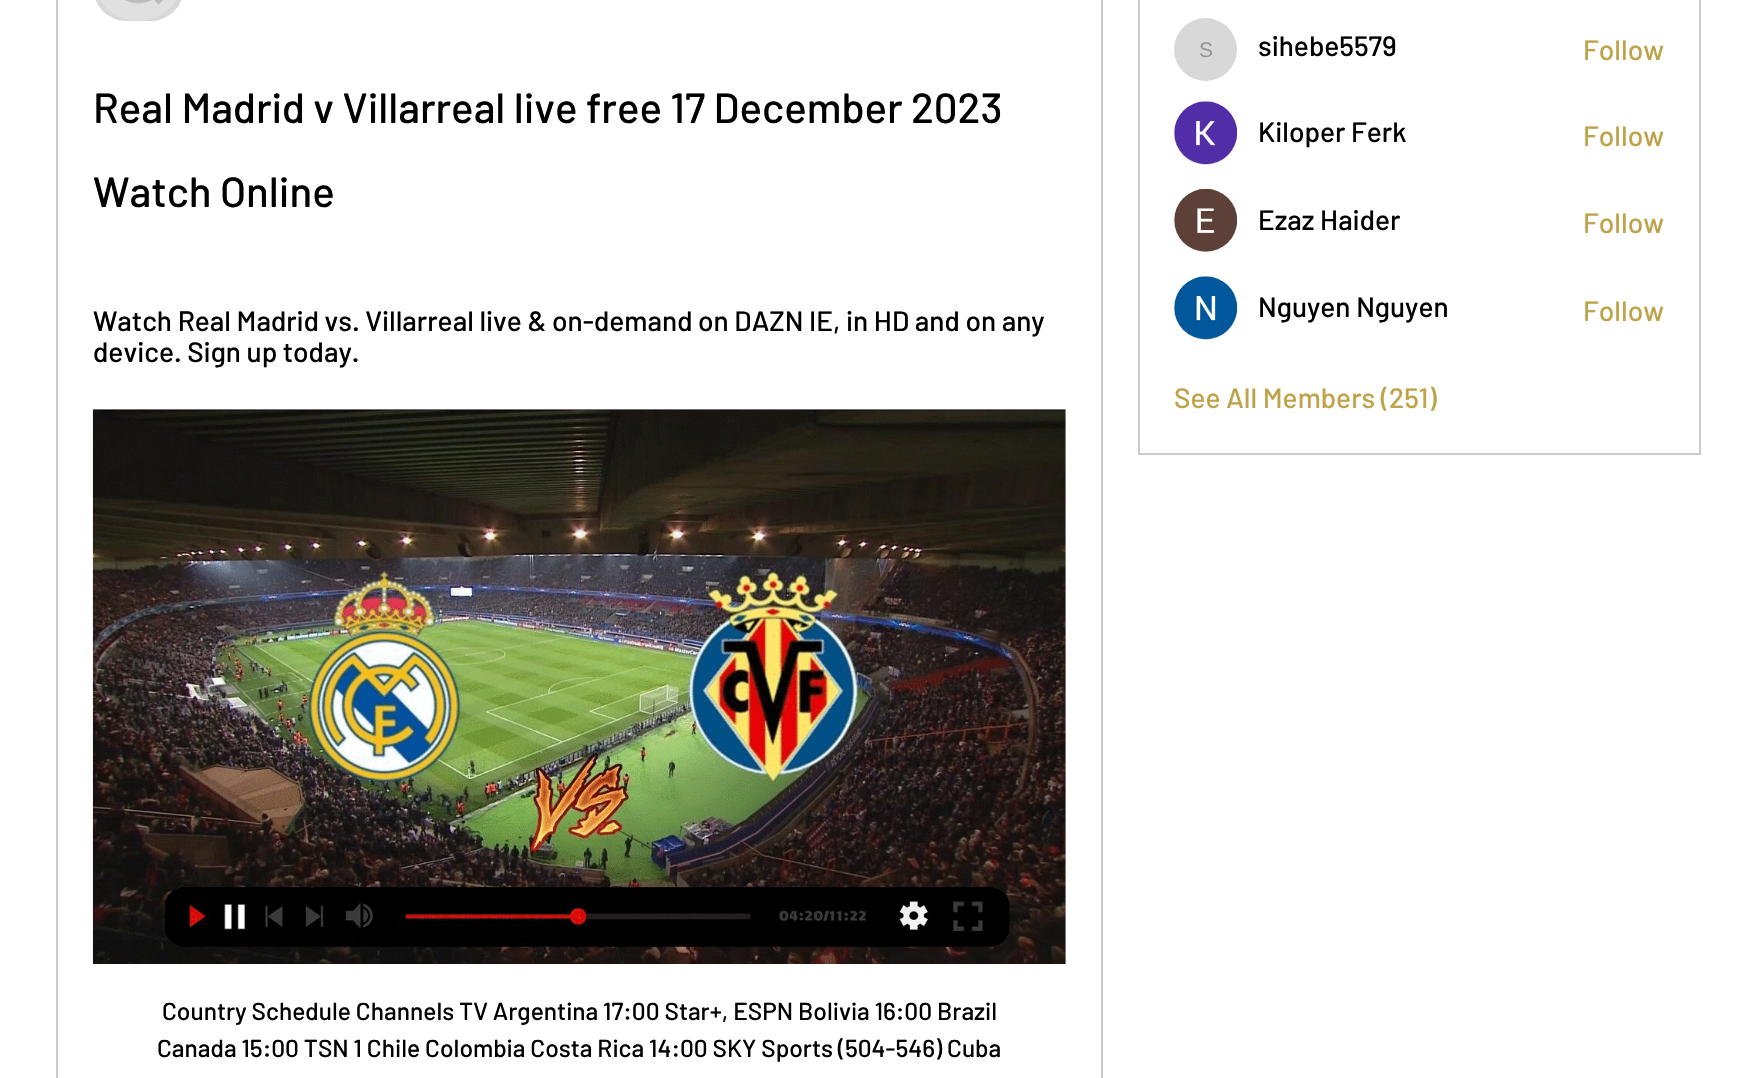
void draw(SkCanvas* canvas) {
  SkPaint paint;
  paint.setAntiAlias(true);
  auto face = [&](const char* family, int weight, float size, bool italic = false) {
    SkFontStyle style(weight, SkFontStyle::kNormal_Width,
      italic ? SkFontStyle::kItalic_Slant : SkFontStyle::kUpright_Slant);
    SkFont result(fontMgr->matchFamilyStyle(family, style), size);
    result.setSubpixel(true);
    return result;
  };
  auto paste = [&](const char* path, float x, float y, float w, float h) {
    auto image = SkImages::DeferredFromEncodedData(SkData::MakeFromFileName(path));
    canvas->drawImageRect(image, SkRect::MakeXYWH(x, y, w, h), SkSamplingOptions());
  };
  canvas->clear(0xffffffff);
  paint.setStroke(true);
  paint.setStrokeWidth(2);
  paint.setColor(0xffcccccc);
  canvas->drawRect(SkRect::MakeXYWH(57, -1, 1045, 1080), paint);
  paint.setStroke(false);
  paint.setColor(0xffd8d8d8);
  canvas->drawRoundRect(SkRect::MakeXYWH(93, -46, 91, 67), 45.5f, 45.5f, paint);
  paste("img/1.png", 100, 0, 76, 21);
  paste("img/2.png", 92, 409, 974, 555);
  paint.setStroke(true);
  paint.setColor(0xffcccccc);
  canvas->drawRect(SkRect::MakeXYWH(1139, -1, 561, 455), paint);
  paint.setStroke(false);
  paint.setColor(0xffd8d8d8);
  canvas->drawCircle(1205.5f, 49.5f, 31.5f, paint);
  canvas->drawCircle(1205.5f, 133.5f, 31.5f, paint);
  paste("img/3.png", 1174, 101, 64, 64);
  canvas->drawCircle(1205.5f, 220.5f, 31.5f, paint);
  paste("img/4.png", 1174, 188, 64, 64);
  canvas->drawCircle(1205.5f, 308.5f, 31.5f, paint);
  paste("img/5.png", 1174, 276, 64, 64);
  auto f0 = face("Barlow", 500, 42);
  paint.setColor(0xff000000);
  canvas->drawString("Real Madrid v Villarreal live free 17 December 2023", 93, 123, f0, paint);
  canvas->drawString("Watch Online", 93, 207, f0, paint);
  auto f1 = face("Barlow", 500, 28);
  canvas->drawString("Watch Real Madrid vs. Villarreal live & on-demand on DAZN IE, in HD and on any", 93, 331, f1, paint);
  canvas->drawString("device. Sign up today.", 93, 362, f1, paint);
  auto f2 = face("Barlow", 500, 24.5f);
  canvas->drawString("Country Schedule Channels TV Argentina 17:00 Star+, ESPN Bolivia 16:00 Brazil", 162, 1020, f2, paint);
  canvas->drawString("Canada 15:00 TSN 1 Chile Colombia Costa Rica 14:00 SKY Sports (504-546) Cuba", 157, 1057, f2, paint);
  auto f3 = face("Liberation Sans", 400, 21);
  paint.setColor(0xff979797);
  canvas->drawString("S", 1199, 57, f3, paint);
  paint.setColor(0xff000000);
  canvas->drawString("sihebe5579", 1258, 56, f1, paint);
  paint.setColor(0xffbfa34b);
  canvas->drawString("Follow", 1583, 60, f1, paint);
  paint.setColor(0xff000000);
  canvas->drawString("Kiloper Ferk", 1258, 142, f1, paint);
  paint.setColor(0xffbfa34b);
  canvas->drawString("Follow", 1583, 146, f1, paint);
  paint.setColor(0xff000000);
  canvas->drawString("Ezaz Haider", 1258, 230, f1, paint);
  paint.setColor(0xffbfa34b);
  canvas->drawString("Follow", 1583, 233, f1, paint);
  paint.setColor(0xff000000);
  canvas->drawString("Nguyen Nguyen", 1258, 317, f1, paint);
  paint.setColor(0xffbfa34b);
  canvas->drawString("Follow", 1583, 321, f1, paint);
  canvas->drawString("See All Members (251)", 1174, 408, f1, paint);
}
